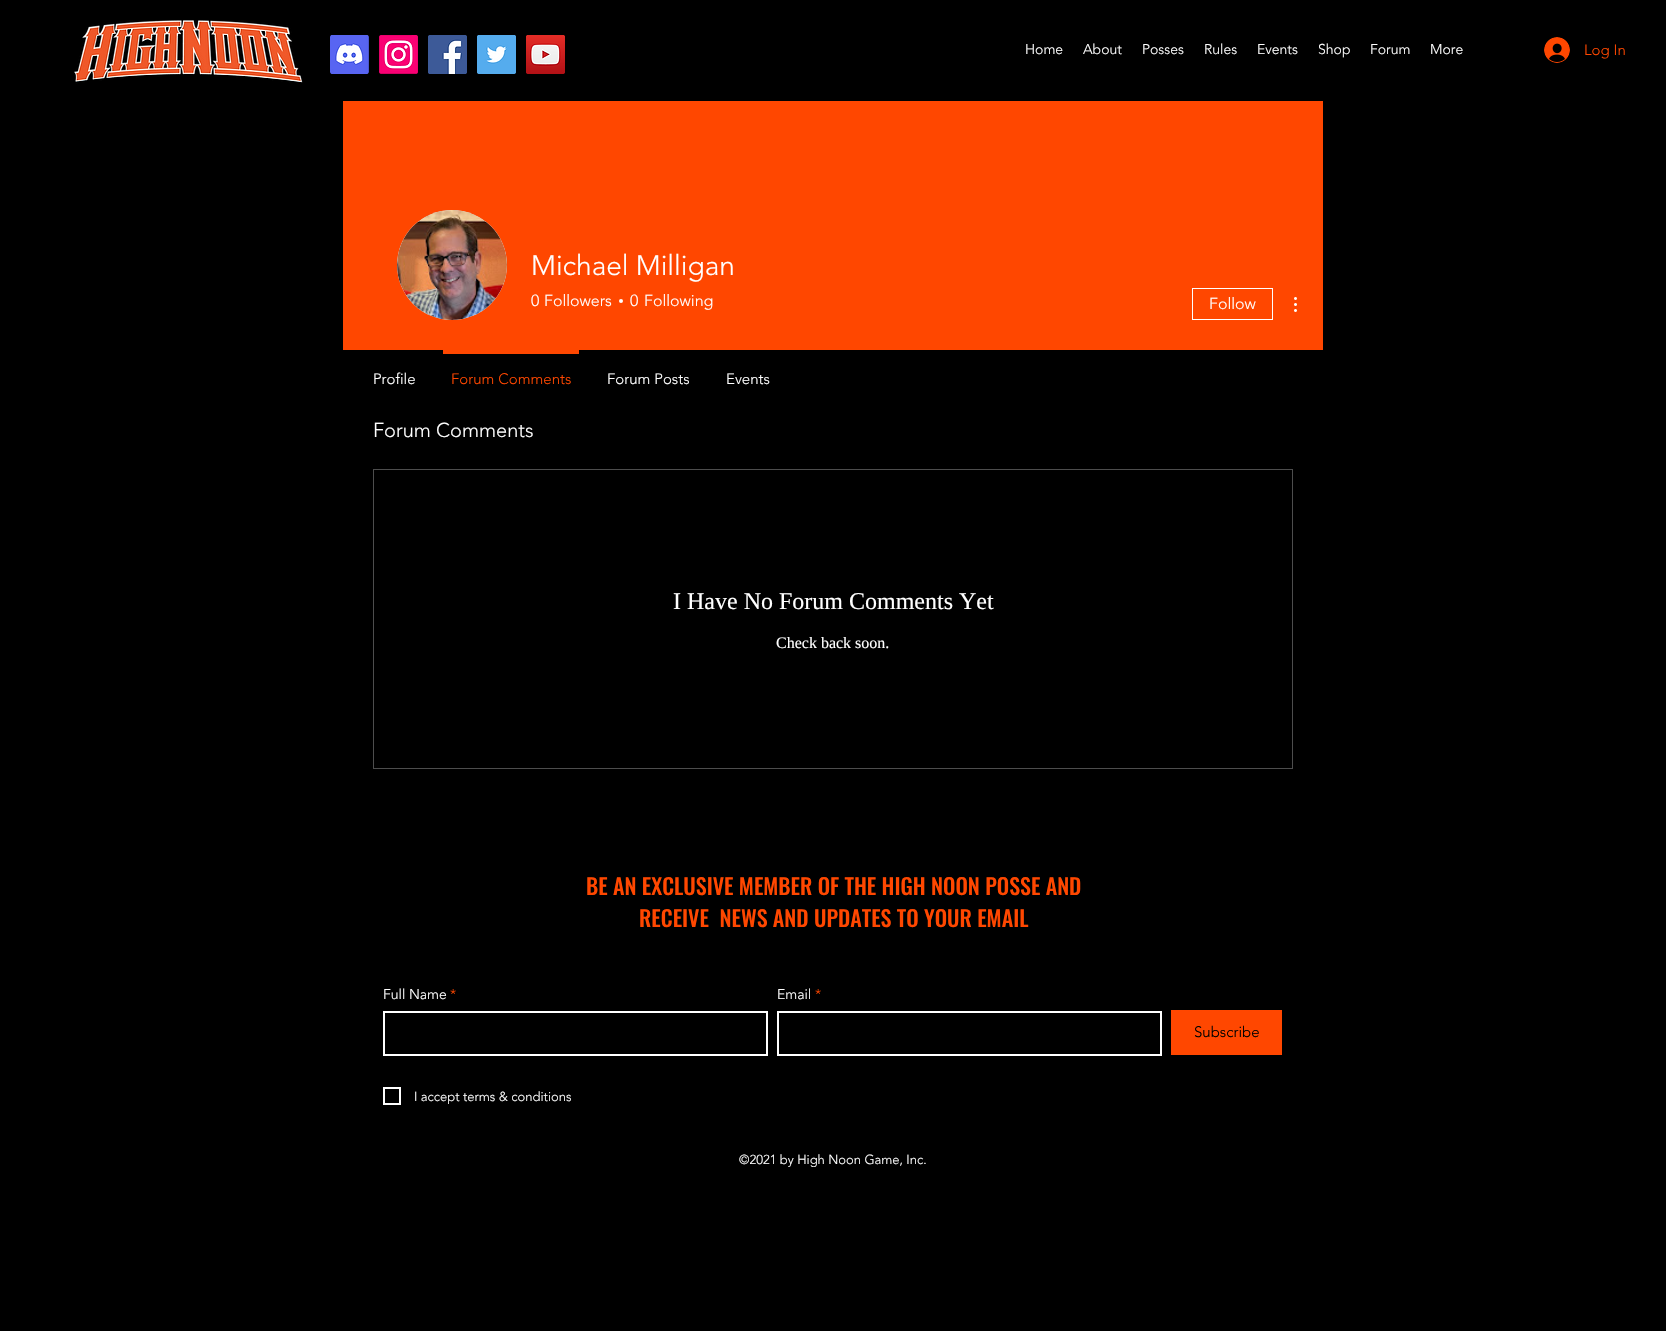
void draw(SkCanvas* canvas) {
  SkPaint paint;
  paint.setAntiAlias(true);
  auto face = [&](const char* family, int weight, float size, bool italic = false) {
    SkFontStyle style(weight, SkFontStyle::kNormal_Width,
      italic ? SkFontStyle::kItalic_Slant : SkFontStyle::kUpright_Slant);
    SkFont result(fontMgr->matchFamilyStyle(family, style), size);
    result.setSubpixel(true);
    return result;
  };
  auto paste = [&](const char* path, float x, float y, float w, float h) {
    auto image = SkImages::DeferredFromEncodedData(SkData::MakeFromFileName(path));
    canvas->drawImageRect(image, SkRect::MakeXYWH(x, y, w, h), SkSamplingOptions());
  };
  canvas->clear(0xff000000);
  paste("img/1.png", 74, 20, 229, 64);
  paste("img/2.png", 330, 35, 39, 39);
  paste("img/3.png", 379, 35, 39, 39);
  paste("img/4.png", 428, 35, 39, 39);
  paste("img/5.png", 477, 35, 39, 39);
  paste("img/6.png", 526, 35, 39, 39);
  paste("img/7.png", 1544, 37, 26, 26);
  paint.setColor(0xffff4700);
  canvas->drawRect(SkRect::MakeXYWH(343, 101, 980, 249), paint);
  paint.setColor(0xffd8d8d8);
  canvas->drawCircle(452, 265, 55, paint);
  paste("img/8.png", 397, 210, 110, 110);
  paint.setColor(0xffffffff);
  canvas->drawCircle(621, 301, 2, paint);
  paint.setStroke(true);
  paint.setStrokeWidth(1);
  canvas->drawRect(SkRect::MakeXYWH(1192.5f, 288.5f, 80, 31), paint);
  paste("img/9.png", 1294, 297, 3, 15);
  paint.setStroke(false);
  paint.setColor(0xffff4700);
  canvas->drawRect(SkRect::MakeXYWH(443, 350, 136, 4), paint);
  paint.setStroke(true);
  paint.setColor(0xff4d4d4d);
  canvas->drawRect(SkRect::MakeXYWH(373.5f, 469.5f, 919, 299), paint);
  paint.setStrokeWidth(2);
  paint.setColor(0xffffffff);
  canvas->drawRect(SkRect::MakeXYWH(384, 1012, 383, 43), paint);
  canvas->drawRect(SkRect::MakeXYWH(778, 1012, 383, 43), paint);
  paint.setStroke(false);
  paint.setColor(0xffff4700);
  canvas->drawRect(SkRect::MakeXYWH(1171, 1010, 111, 45), paint);
  paint.setStroke(true);
  paint.setColor(0xffffffff);
  canvas->drawRect(SkRect::MakeXYWH(384, 1088, 16, 16), paint);
  auto f0 = face("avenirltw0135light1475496", 300, 14);
  paint.setStroke(false);
  {
    const struct { const char* s; float x, y; } items[] = {
      {"Home", 1025, 54},
      {"About", 1083, 54},
      {"Posses", 1142, 54},
      {"Rules", 1204, 54},
      {"Events", 1257, 54},
      {"Shop", 1318, 54},
      {"Forum", 1370, 54},
      {"More", 1430, 54},
    };
    for (auto [s, x, y] : items) {
      canvas->drawString(s, x, y, f0, paint);
    }
  }
  auto f1 = face("avenirltw0135light1475496", 300, 15);
  paint.setColor(0xffff4700);
  canvas->drawString("Log In", 1584, 55, f1, paint);
  auto f2 = face("avenirltw0135light1475496", 300, 28);
  paint.setColor(0xffffffff);
  canvas->drawString("Michael Milligan", 531, 275, f2, paint);
  auto f3 = face("avenirltw0135light1475496", 300, 16);
  {
    const struct { const char* s; float x, y; } items[] = {
      {"0", 531, 306},
      {"Followers", 544, 306},
      {"0", 630, 306},
      {"Following", 644, 306},
      {"Follow", 1209, 309},
    };
    for (auto [s, x, y] : items) {
      canvas->drawString(s, x, y, f3, paint);
    }
  }
  canvas->drawString("Profile", 373, 384, f1, paint);
  paint.setColor(0xffff4700);
  canvas->drawString("Forum Comments", 451, 384, f1, paint);
  paint.setColor(0xffffffff);
  canvas->drawString("Forum Posts", 607, 384, f1, paint);
  canvas->drawString("Events", 726, 384, f1, paint);
  auto f4 = face("avenirltw0135light1475496", 300, 20);
  canvas->drawString("Forum Comments", 373, 437, f4, paint);
  auto f5 = face("Liberation Serif", 400, 24);
  canvas->drawString("I Have No Forum Comments Yet", 673, 609, f5, paint);
  auto f6 = face("Liberation Serif", 400, 16);
  canvas->drawString("Check back soon.", 776, 648, f6, paint);
  auto f7 = face("Oswald", 500, 22);
  paint.setColor(0xffff4700);
  canvas->drawString("BE AN EXCLUSIVE MEMBER OF THE HIGH NOON POSSE AND", 586, 895, f7, paint);
  canvas->drawString("RECEIVE  NEWS AND UPDATES TO YOUR EMAIL", 639, 927, f7, paint);
  paint.setColor(0xffffffff);
  canvas->drawString("Full Name", 383, 999, f0, paint);
  paint.setColor(0xffff4700);
  canvas->drawString("*", 450, 999, f0, paint);
  paint.setColor(0xffffffff);
  canvas->drawString("Email", 777, 999, f0, paint);
  paint.setColor(0xffff4700);
  canvas->drawString("*", 815, 999, f0, paint);
  paint.setColor(0xff000000);
  canvas->drawString("Subscribe", 1194, 1037, f1, paint);
  auto f8 = face("avenirltw0135light1475496", 300, 13);
  paint.setColor(0xffffffff);
  canvas->drawString("I accept terms & conditions", 414, 1101, f8, paint);
  canvas->drawString("©2021 by High Noon Game, Inc.", 739, 1164, f8, paint);
}
